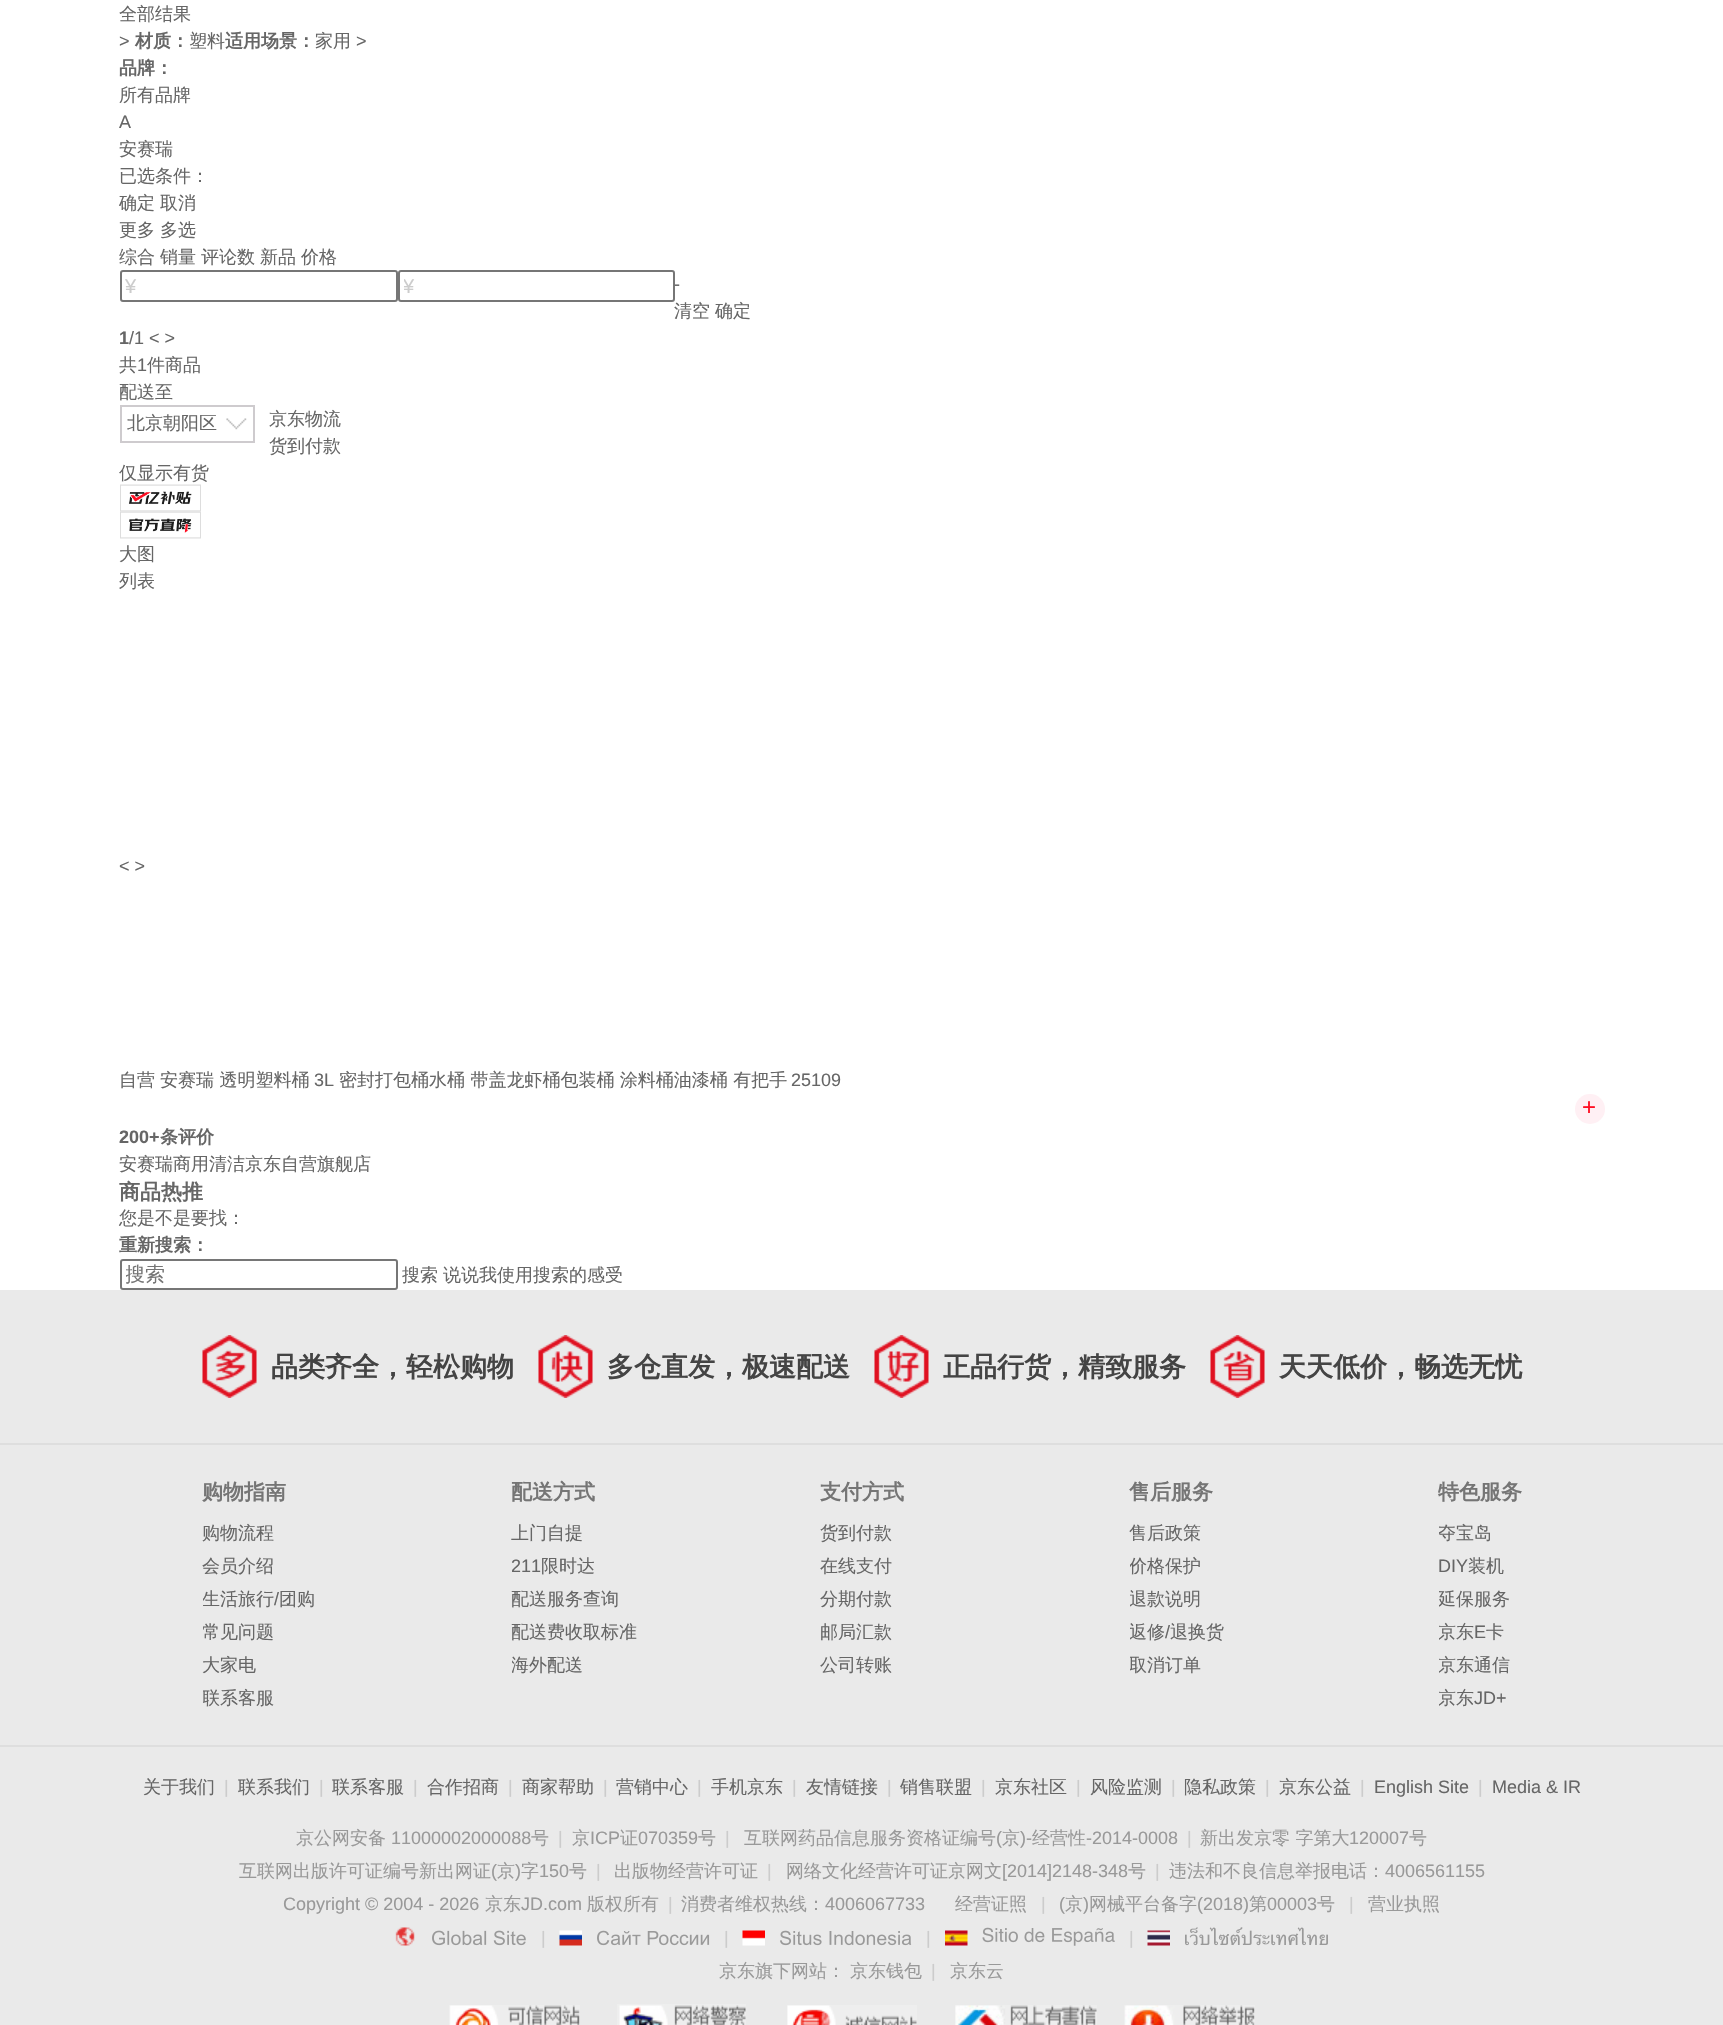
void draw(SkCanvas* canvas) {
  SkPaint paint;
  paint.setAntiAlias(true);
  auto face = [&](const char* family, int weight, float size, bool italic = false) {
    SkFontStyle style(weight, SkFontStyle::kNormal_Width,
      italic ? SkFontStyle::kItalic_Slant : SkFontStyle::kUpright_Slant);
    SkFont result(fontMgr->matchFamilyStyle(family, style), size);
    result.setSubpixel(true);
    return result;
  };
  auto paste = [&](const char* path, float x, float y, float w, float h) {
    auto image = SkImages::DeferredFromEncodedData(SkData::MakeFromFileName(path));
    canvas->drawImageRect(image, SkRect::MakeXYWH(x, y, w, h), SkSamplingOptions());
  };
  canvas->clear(0xffffffff);
  paint.setStroke(true);
  paint.setStrokeWidth(2);
  paint.setColor(0xff767676);
  canvas->drawRoundRect(SkRect::MakeXYWH(121, 271, 276, 30), 2, 2, paint);
  canvas->drawRoundRect(SkRect::MakeXYWH(399, 271, 275, 30), 2, 2, paint);
  paint.setColor(0xffcecbce);
  canvas->drawRect(SkRect::MakeXYWH(121, 406, 133, 36), paint);
  paste("img/1.png", 226, 418, 21, 12);
  paste("img/2.png", 120, 484, 81, 28);
  paste("img/3.png", 120, 511, 81, 28);
  paint.setStroke(false);
  paint.setColor(0xfffff0f4);
  canvas->drawCircle(1590, 1109, 15, paint);
  paint.setStroke(true);
  paint.setColor(0xff767676);
  canvas->drawRoundRect(SkRect::MakeXYWH(121, 1260, 276, 29), 2, 2, paint);
  paint.setStroke(false);
  paint.setColor(0xffeaeaea);
  canvas->drawRect(SkRect::MakeXYWH(0, 1290, 1723, 735), paint);
  paste("img/4.png", 202, 1335, 55, 63);
  paste("img/5.png", 538, 1335, 55, 63);
  paste("img/6.png", 874, 1335, 55, 63);
  paste("img/7.png", 1210, 1335, 55, 63);
  paint.setColor(0xffdedede);
  canvas->drawRect(SkRect::MakeXYWH(0, 1443, 1723, 2), paint);
  canvas->drawRect(SkRect::MakeXYWH(0, 1745, 1723, 2), paint);
  paste("img/8.png", 395, 1927, 20, 19);
  paste("img/9.png", 432, 1930, 94, 16);
  paste("img/10.png", 559, 1930, 23, 16);
  paste("img/11.png", 597, 1930, 113, 16);
  paste("img/12.png", 742, 1930, 23, 16);
  paste("img/13.png", 780, 1930, 132, 16);
  paste("img/14.png", 945, 1930, 23, 16);
  paste("img/15.png", 982, 1927, 133, 19);
  paste("img/16.png", 1147, 1930, 23, 16);
  paste("img/17.png", 1185, 1927, 143, 19);
  paste("img/18.png", 449, 2005, 131, 20);
  paste("img/19.png", 617, 2004, 129, 21);
  paste("img/20.png", 787, 2005, 130, 20);
  paste("img/21.png", 955, 2005, 142, 20);
  paste("img/22.png", 1124, 2005, 131, 20);
  auto f0 = face("WenQuanYi Zen Hei", 500, 18);
  paint.setColor(0xff666666);
  canvas->drawString("全部结果", 119, 20, f0, paint);
  auto f1 = face("Liberation Sans", 400, 18);
  canvas->drawString(">", 119, 47, f1, paint);
  auto f2 = face("WenQuanYi Zen Hei", 700, 18);
  canvas->drawString("材质：", 135, 47, f2, paint);
  canvas->drawString("塑料", 189, 47, f0, paint);
  canvas->drawString("适用场景：", 225, 47, f2, paint);
  canvas->drawString("家用", 315, 47, f0, paint);
  canvas->drawString(">", 356, 47, f1, paint);
  canvas->drawString("品牌：", 119, 74, f2, paint);
  canvas->drawString("所有品牌", 119, 101, f0, paint);
  canvas->drawString("A", 119, 128, f1, paint);
  {
    const struct { const char* s; float x, y; } items[] = {
      {"安赛瑞", 119, 155},
      {"已选条件：", 119, 182},
      {"确定", 119, 209},
      {"取消", 160, 209},
      {"更多", 119, 236},
      {"多选", 160, 236},
      {"综合", 119, 263},
      {"销量", 160, 263},
      {"评论数", 201, 263},
      {"新品", 260, 263},
      {"价格", 301, 263},
    };
    for (auto [s, x, y] : items) {
      canvas->drawString(s, x, y, f0, paint);
    }
  }
  auto f3 = face("Liberation Sans", 400, 20);
  paint.setColor(0xffcccccc);
  canvas->drawString("¥", 125, 293, f3, paint);
  canvas->save();
  canvas->clipRect(SkRect::MakeXYWH(404, 275, 265, 22));
  canvas->drawString("¥", 403, 293, f3, paint);
  canvas->restore();
  paint.setColor(0xff666666);
  canvas->drawString("-", 674, 290, f1, paint);
  canvas->drawString("清空", 674, 317, f0, paint);
  canvas->drawString("确定", 715, 317, f0, paint);
  auto f4 = face("Liberation Sans", 700, 18);
  canvas->drawString("1", 119, 344, f4, paint);
  canvas->drawString("/1 < >", 129, 344, f1, paint);
  canvas->drawString("共", 119, 371, f0, paint);
  canvas->drawString("1", 137, 371, f1, paint);
  {
    const struct { const char* s; float x, y; } items[] = {
      {"件商品", 147, 371},
      {"配送至", 119, 398},
      {"北京朝阳区", 127, 429},
      {"京东物流", 269, 425},
      {"货到付款", 269, 452},
      {"仅显示有货", 119, 479},
      {"大图", 119, 560},
      {"列表", 119, 587},
    };
    for (auto [s, x, y] : items) {
      canvas->drawString(s, x, y, f0, paint);
    }
  }
  canvas->drawString("< >", 119, 872, f1, paint);
  canvas->drawString("自营", 119, 1086, f0, paint);
  canvas->drawString("安赛瑞 透明塑料桶", 160, 1086, f0, paint);
  canvas->drawString("3L", 314, 1086, f1, paint);
  canvas->drawString("密封打包桶水桶 带盖龙虾桶包装桶 涂料桶油漆桶 有把手", 339, 1086, f0, paint);
  canvas->drawString("25109", 791, 1086, f1, paint);
  auto f5 = face("Liberation Sans", 400, 24);
  paint.setColor(0xffff0f23);
  canvas->drawString("+", 1582, 1115, f5, paint);
  paint.setColor(0xff666666);
  canvas->drawString("200+", 119, 1143, f4, paint);
  canvas->drawString("条评价", 160, 1143, f2, paint);
  canvas->drawString("安赛瑞商用清洁京东自营旗舰店", 119, 1170, f0, paint);
  auto f6 = face("WenQuanYi Zen Hei", 700, 21);
  canvas->drawString("商品热推", 119, 1199, f6, paint);
  canvas->drawString("您是不是要找：", 119, 1224, f0, paint);
  canvas->drawString("重新搜索：", 119, 1251, f2, paint);
  canvas->save();
  canvas->clipRect(SkRect::MakeXYWH(126, 1262, 266, 25));
  auto f7 = face("WenQuanYi Zen Hei", 500, 20);
  paint.setColor(0xff757575);
  canvas->drawString("搜索", 125, 1281, f7, paint);
  canvas->restore();
  paint.setColor(0xff666666);
  canvas->drawString("搜索", 402, 1281, f0, paint);
  canvas->drawString("说说我使用搜索的感受", 443, 1281, f0, paint);
  auto f8 = face("WenQuanYi Zen Hei", 700, 27);
  paint.setColor(0xff444444);
  {
    const struct { const char* s; float x, y; } items[] = {
      {"品类齐全，轻松购物", 271, 1376},
      {"多仓直发，极速配送", 607, 1376},
      {"正品行货，精致服务", 943, 1376},
      {"天天低价，畅选无忧", 1279, 1376},
    };
    for (auto [s, x, y] : items) {
      canvas->drawString(s, x, y, f8, paint);
    }
  }
  paint.setColor(0xff757575);
  canvas->drawString("购物指南", 202, 1499, f6, paint);
  paint.setColor(0xff666666);
  canvas->drawString("购物流程", 202, 1539, f0, paint);
  canvas->drawString("会员介绍", 202, 1572, f0, paint);
  canvas->save();
  canvas->clipRect(SkRect::MakeXYWH(203, 1583, 309, 33));
  canvas->drawString("生活旅行", 202, 1605, f0, paint);
  canvas->restore();
  canvas->drawString("/", 274, 1605, f1, paint);
  canvas->drawString("团购", 279, 1605, f0, paint);
  canvas->save();
  canvas->clipRect(SkRect::MakeXYWH(203, 1616, 309, 33));
  canvas->drawString("常见问题", 202, 1638, f0, paint);
  canvas->restore();
  canvas->drawString("大家电", 202, 1671, f0, paint);
  canvas->save();
  canvas->clipRect(SkRect::MakeXYWH(203, 1682, 309, 33));
  canvas->drawString("联系客服", 202, 1704, f0, paint);
  canvas->restore();
  paint.setColor(0xff757575);
  canvas->drawString("配送方式", 511, 1499, f6, paint);
  paint.setColor(0xff666666);
  canvas->drawString("上门自提", 511, 1539, f0, paint);
  canvas->save();
  canvas->clipRect(SkRect::MakeXYWH(512, 1550, 309, 33));
  canvas->drawString("211", 511, 1572, f1, paint);
  canvas->restore();
  {
    const struct { const char* s; float x, y; } items[] = {
      {"限时达", 541, 1572},
      {"配送服务查询", 511, 1605},
      {"配送费收取标准", 511, 1638},
    };
    for (auto [s, x, y] : items) {
      canvas->drawString(s, x, y, f0, paint);
    }
  }
  canvas->save();
  canvas->clipRect(SkRect::MakeXYWH(512, 1649, 309, 33));
  canvas->drawString("海外配送", 511, 1671, f0, paint);
  canvas->restore();
  paint.setColor(0xff757575);
  canvas->drawString("支付方式", 820, 1499, f6, paint);
  paint.setColor(0xff666666);
  {
    const struct { const char* s; float x, y; } items[] = {
      {"货到付款", 820, 1539},
      {"在线支付", 820, 1572},
      {"分期付款", 820, 1605},
      {"邮局汇款", 820, 1638},
      {"公司转账", 820, 1671},
    };
    for (auto [s, x, y] : items) {
      canvas->drawString(s, x, y, f0, paint);
    }
  }
  paint.setColor(0xff757575);
  canvas->drawString("售后服务", 1129, 1499, f6, paint);
  paint.setColor(0xff666666);
  canvas->drawString("售后政策", 1129, 1539, f0, paint);
  canvas->save();
  canvas->clipRect(SkRect::MakeXYWH(1130, 1550, 309, 33));
  canvas->drawString("价格保护", 1129, 1572, f0, paint);
  canvas->restore();
  canvas->save();
  canvas->clipRect(SkRect::MakeXYWH(1130, 1583, 309, 33));
  canvas->drawString("退款说明", 1129, 1605, f0, paint);
  canvas->restore();
  canvas->save();
  canvas->clipRect(SkRect::MakeXYWH(1130, 1616, 309, 33));
  canvas->drawString("返修", 1129, 1638, f0, paint);
  canvas->restore();
  canvas->drawString("/", 1165, 1638, f1, paint);
  canvas->drawString("退换货", 1170, 1638, f0, paint);
  canvas->save();
  canvas->clipRect(SkRect::MakeXYWH(1130, 1649, 309, 33));
  canvas->drawString("取消订单", 1129, 1671, f0, paint);
  canvas->restore();
  paint.setColor(0xff757575);
  canvas->drawString("特色服务", 1438, 1499, f6, paint);
  canvas->save();
  canvas->clipRect(SkRect::MakeXYWH(1439, 1517, 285, 33));
  paint.setColor(0xff666666);
  canvas->drawString("夺宝岛", 1438, 1539, f0, paint);
  canvas->restore();
  canvas->drawString("DIY", 1438, 1572, f1, paint);
  canvas->drawString("装机", 1468, 1572, f0, paint);
  canvas->save();
  canvas->clipRect(SkRect::MakeXYWH(1439, 1583, 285, 33));
  canvas->drawString("延保服务", 1438, 1605, f0, paint);
  canvas->restore();
  canvas->save();
  canvas->clipRect(SkRect::MakeXYWH(1439, 1616, 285, 33));
  canvas->drawString("京东", 1438, 1638, f0, paint);
  canvas->restore();
  canvas->drawString("E", 1474, 1638, f1, paint);
  canvas->drawString("卡", 1486, 1638, f0, paint);
  canvas->save();
  canvas->clipRect(SkRect::MakeXYWH(1439, 1649, 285, 33));
  canvas->drawString("京东通信", 1438, 1671, f0, paint);
  canvas->restore();
  canvas->save();
  canvas->clipRect(SkRect::MakeXYWH(1439, 1682, 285, 33));
  canvas->drawString("京东", 1438, 1704, f0, paint);
  canvas->restore();
  canvas->drawString("JD+", 1474, 1704, f1, paint);
  canvas->drawString("关于我们", 143, 1793, f0, paint);
  paint.setColor(0xffcccccc);
  canvas->drawString("|", 224, 1793, f1, paint);
  paint.setColor(0xff666666);
  canvas->drawString("联系我们", 238, 1793, f0, paint);
  paint.setColor(0xffcccccc);
  canvas->drawString("|", 319, 1793, f1, paint);
  paint.setColor(0xff666666);
  canvas->drawString("联系客服", 332, 1793, f0, paint);
  paint.setColor(0xffcccccc);
  canvas->drawString("|", 413, 1793, f1, paint);
  paint.setColor(0xff666666);
  canvas->drawString("合作招商", 427, 1793, f0, paint);
  paint.setColor(0xffcccccc);
  canvas->drawString("|", 508, 1793, f1, paint);
  paint.setColor(0xff666666);
  canvas->drawString("商家帮助", 522, 1793, f0, paint);
  paint.setColor(0xffcccccc);
  canvas->drawString("|", 603, 1793, f1, paint);
  paint.setColor(0xff666666);
  canvas->drawString("营销中心", 616, 1793, f0, paint);
  paint.setColor(0xffcccccc);
  canvas->drawString("|", 697, 1793, f1, paint);
  paint.setColor(0xff666666);
  canvas->drawString("手机京东", 711, 1793, f0, paint);
  paint.setColor(0xffcccccc);
  canvas->drawString("|", 792, 1793, f1, paint);
  paint.setColor(0xff666666);
  canvas->drawString("友情链接", 806, 1793, f0, paint);
  paint.setColor(0xffcccccc);
  canvas->drawString("|", 887, 1793, f1, paint);
  paint.setColor(0xff666666);
  canvas->drawString("销售联盟", 900, 1793, f0, paint);
  paint.setColor(0xffcccccc);
  canvas->drawString("|", 981, 1793, f1, paint);
  paint.setColor(0xff666666);
  canvas->drawString("京东社区", 995, 1793, f0, paint);
  paint.setColor(0xffcccccc);
  canvas->drawString("|", 1076, 1793, f1, paint);
  paint.setColor(0xff666666);
  canvas->drawString("风险监测", 1090, 1793, f0, paint);
  paint.setColor(0xffcccccc);
  canvas->drawString("|", 1171, 1793, f1, paint);
  paint.setColor(0xff666666);
  canvas->drawString("隐私政策", 1184, 1793, f0, paint);
  paint.setColor(0xffcccccc);
  canvas->drawString("|", 1265, 1793, f1, paint);
  paint.setColor(0xff666666);
  canvas->drawString("京东公益", 1279, 1793, f0, paint);
  paint.setColor(0xffcccccc);
  canvas->drawString("|", 1360, 1793, f1, paint);
  paint.setColor(0xff666666);
  canvas->drawString("English Site", 1374, 1793, f1, paint);
  paint.setColor(0xffcccccc);
  canvas->drawString("|", 1478, 1793, f1, paint);
  paint.setColor(0xff666666);
  canvas->drawString("Media & IR", 1492, 1793, f1, paint);
  paint.setColor(0xff999999);
  canvas->drawString("京公网安备", 296, 1844, f0, paint);
  canvas->drawString("11000002000088", 391, 1844, f1, paint);
  canvas->drawString("号", 531, 1844, f0, paint);
  paint.setColor(0xffcccccc);
  canvas->drawString("|", 558, 1844, f1, paint);
  paint.setColor(0xff999999);
  canvas->drawString("京", 572, 1844, f0, paint);
  canvas->drawString("ICP", 590, 1844, f1, paint);
  canvas->drawString("证", 620, 1844, f0, paint);
  canvas->drawString("070359", 638, 1844, f1, paint);
  canvas->drawString("号", 698, 1844, f0, paint);
  paint.setColor(0xffcccccc);
  canvas->drawString("|", 725, 1844, f1, paint);
  paint.setColor(0xff999999);
  canvas->drawString("互联网药品信息服务资格证编号", 744, 1844, f0, paint);
  canvas->drawString("(", 996, 1844, f1, paint);
  canvas->drawString("京", 1002, 1844, f0, paint);
  canvas->drawString(")-", 1020, 1844, f1, paint);
  canvas->drawString("经营性", 1032, 1844, f0, paint);
  canvas->drawString("-2014-0008", 1086, 1844, f1, paint);
  paint.setColor(0xffcccccc);
  canvas->drawString("|", 1187, 1844, f1, paint);
  paint.setColor(0xff999999);
  canvas->drawString("新出发京零 字第大", 1200, 1844, f0, paint);
  canvas->drawString("120007", 1349, 1844, f1, paint);
  canvas->drawString("号", 1409, 1844, f0, paint);
  canvas->drawString("互联网出版许可证编号新出网证", 239, 1877, f0, paint);
  canvas->drawString("(", 491, 1877, f1, paint);
  canvas->drawString("京", 497, 1877, f0, paint);
  canvas->drawString(")", 515, 1877, f1, paint);
  canvas->drawString("字", 521, 1877, f0, paint);
  canvas->drawString("150", 539, 1877, f1, paint);
  canvas->drawString("号", 569, 1877, f0, paint);
  paint.setColor(0xffcccccc);
  canvas->drawString("|", 596, 1877, f1, paint);
  paint.setColor(0xff999999);
  canvas->drawString("出版物经营许可证", 614, 1877, f0, paint);
  paint.setColor(0xffcccccc);
  canvas->drawString("|", 767, 1877, f1, paint);
  paint.setColor(0xff999999);
  canvas->drawString("网络文化经营许可证京网文", 786, 1877, f0, paint);
  canvas->drawString("[2014]2148-348", 1002, 1877, f1, paint);
  canvas->drawString("号", 1128, 1877, f0, paint);
  paint.setColor(0xffcccccc);
  canvas->drawString("|", 1155, 1877, f1, paint);
  paint.setColor(0xff999999);
  canvas->drawString("违法和不良信息举报电话：", 1169, 1877, f0, paint);
  canvas->drawString("4006561155", 1385, 1877, f1, paint);
  canvas->drawString("Copyright © 2004 - 2026", 283, 1910, f1, paint);
  canvas->drawString("京东", 485, 1910, f0, paint);
  canvas->drawString("JD.com", 521, 1910, f1, paint);
  canvas->drawString("版权所有", 587, 1910, f0, paint);
  paint.setColor(0xffcccccc);
  canvas->drawString("|", 668, 1910, f1, paint);
  paint.setColor(0xff999999);
  canvas->drawString("消费者维权热线：", 681, 1910, f0, paint);
  canvas->drawString("4006067733", 825, 1910, f1, paint);
  canvas->drawString("经营证照", 955, 1910, f0, paint);
  paint.setColor(0xffcccccc);
  canvas->drawString("|", 1041, 1910, f1, paint);
  paint.setColor(0xff999999);
  canvas->drawString("(", 1059, 1910, f1, paint);
  canvas->drawString("京", 1065, 1910, f0, paint);
  canvas->drawString(")", 1083, 1910, f1, paint);
  canvas->drawString("网械平台备字", 1089, 1910, f0, paint);
  canvas->drawString("(2018)", 1197, 1910, f1, paint);
  canvas->drawString("第", 1249, 1910, f0, paint);
  canvas->drawString("00003", 1267, 1910, f1, paint);
  canvas->drawString("号", 1317, 1910, f0, paint);
  paint.setColor(0xffcccccc);
  canvas->drawString("|", 1349, 1910, f1, paint);
  paint.setColor(0xff999999);
  canvas->drawString("营业执照", 1368, 1910, f0, paint);
  paint.setColor(0xffcccccc);
  {
    const struct { const char* s; float x, y; } items[] = {
      {"|", 541, 1944},
      {"|", 724, 1944},
      {"|", 926, 1944},
      {"|", 1129, 1944},
    };
    for (auto [s, x, y] : items) {
      canvas->drawString(s, x, y, f1, paint);
    }
  }
  paint.setColor(0xff999999);
  canvas->drawString("京东旗下网站：", 719, 1977, f0, paint);
  canvas->drawString("京东钱包", 850, 1977, f0, paint);
  paint.setColor(0xffcccccc);
  canvas->drawString("|", 931, 1977, f1, paint);
  paint.setColor(0xff999999);
  canvas->drawString("京东云", 950, 1977, f0, paint);
}
